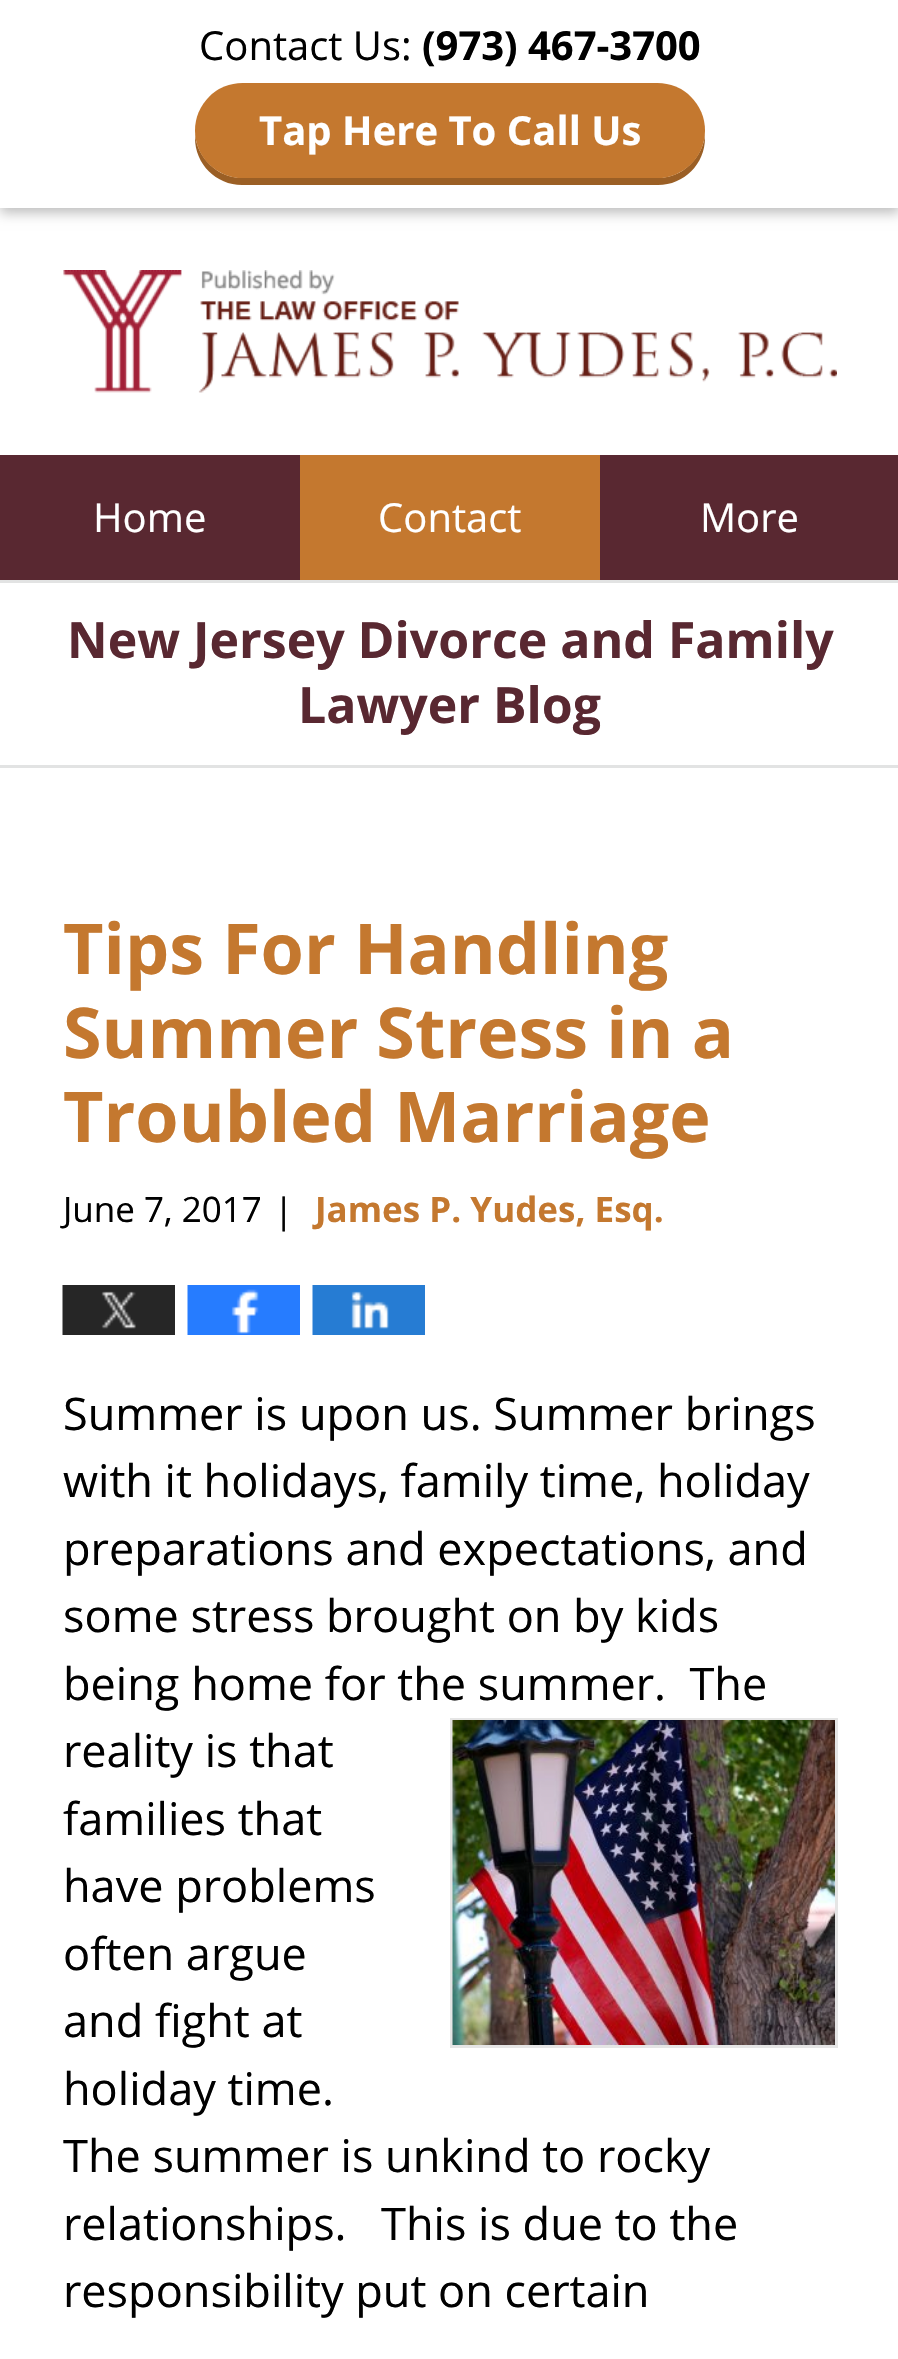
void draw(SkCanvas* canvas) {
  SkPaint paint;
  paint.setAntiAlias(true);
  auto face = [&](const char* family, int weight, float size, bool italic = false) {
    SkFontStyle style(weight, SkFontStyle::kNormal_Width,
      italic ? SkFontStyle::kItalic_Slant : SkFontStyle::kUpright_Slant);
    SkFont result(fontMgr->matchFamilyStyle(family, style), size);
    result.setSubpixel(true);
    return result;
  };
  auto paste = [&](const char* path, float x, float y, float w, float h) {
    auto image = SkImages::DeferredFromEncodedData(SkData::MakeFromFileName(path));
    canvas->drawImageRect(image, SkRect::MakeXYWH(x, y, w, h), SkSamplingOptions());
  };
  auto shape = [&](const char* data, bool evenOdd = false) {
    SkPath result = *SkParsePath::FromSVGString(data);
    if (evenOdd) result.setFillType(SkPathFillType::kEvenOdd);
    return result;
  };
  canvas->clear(0xffffffff);
  paint.setColor(0x42000000);
  paint.setMaskFilter(SkMaskFilter::MakeBlur(kNormal_SkBlurStyle, 6));
  canvas->drawRect(SkRect::MakeXYWH(0, 5, 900, 208), paint);
  paint.setMaskFilter(nullptr);
  paint.setColor(0xffffffff);
  canvas->drawRect(SkRect::MakeXYWH(0, 0, 898, 208), paint);
  paint.setColor(0xff9b5f25);
  canvas->drawPath(shape("M195 134V138C195 164 216 185 242 185H658C684 185 705 164 705 138V134C703 158 682 178 658 178H242C218 178 197 158 195 134Z"), paint);
  paint.setColor(0xffc4782f);
  canvas->drawRoundRect(SkRect::MakeXYWH(195, 83, 510, 95), 47.5f, 47.5f, paint);
  paste("img/1.png", 63, 270, 774, 123);
  {
    const struct { float x, y, w, h; SkColor color; } items[] = {
      {0, 455, 898, 125, 0xff592831},
      {300, 455, 300, 125, 0xffc4782f},
      {0, 765, 898, 3, 0xffe2e3e3},
      {0, 580, 898, 3, 0xffe2e3e3},
    };
    for (auto [x, y, w, h, color] : items) {
      paint.setColor(color);
      canvas->drawRect(SkRect::MakeXYWH(x, y, w, h), paint);
    }
  }
  paste("img/2.png", 62, 1285, 113, 50);
  paste("img/3.png", 187, 1285, 113, 50);
  paste("img/4.png", 312, 1285, 113, 50);
  paint.setStroke(true);
  paint.setStrokeWidth(3);
  paint.setColor(0xffe5e5e5);
  canvas->drawRect(SkRect::MakeXYWH(451.5f, 1719.5f, 385, 327), paint);
  paste("img/5.png", 452, 1720, 383, 325);
  auto f0 = face("Open Sans", 400, 40);
  paint.setStroke(false);
  paint.setColor(0xff000000);
  canvas->drawString("Contact Us:", 199, 60, f0, paint);
  auto f1 = face("Open Sans", 700, 40);
  canvas->drawString("(973) 467-3700", 422, 60, f1, paint);
  paint.setColor(0xffffffff);
  canvas->drawString("Tap Here To Call Us", 259, 145, f1, paint);
  {
    const struct { const char* s; float x, y; } items[] = {
      {"Home", 93, 532},
      {"Contact", 378, 532},
      {"More", 700, 532},
    };
    for (auto [s, x, y] : items) {
      canvas->drawString(s, x, y, f0, paint);
    }
  }
  auto f2 = face("Open Sans", 700, 50);
  paint.setColor(0xff592831);
  canvas->drawString("New Jersey Divorce and Family", 67, 658, f2, paint);
  canvas->drawString("Lawyer Blog", 298, 723, f2, paint);
  auto f3 = face("Open Sans", 700, 70);
  paint.setColor(0xffc4782f);
  {
    const struct { const char* s; float x, y; } items[] = {
      {"Tips For Handling", 63, 974},
      {"Summer Stress in a", 63, 1058},
      {"Troubled Marriage", 63, 1142},
    };
    for (auto [s, x, y] : items) {
      canvas->drawString(s, x, y, f3, paint);
    }
  }
  auto f4 = face("Open Sans", 400, 35);
  paint.setColor(0xff000000);
  canvas->drawString("June 7, 2017", 63, 1222, f4, paint);
  canvas->drawString("|", 274, 1223, f4, paint);
  auto f5 = face("Open Sans", 700, 35);
  paint.setColor(0xffc4782f);
  canvas->drawString("James P. Yudes, Esq.", 315, 1222, f5, paint);
  auto f6 = face("Open Sans", 400, 45);
  paint.setColor(0xff000000);
  {
    const struct { const char* s; float x, y; } items[] = {
      {"Summer is upon us. Summer brings", 63, 1430},
      {"with it holidays, family time, holiday", 63, 1497},
      {"preparations and expectations, and", 63, 1565},
      {"some stress brought on by kids", 63, 1632},
      {"being home for the summer.  The", 63, 1700},
      {"reality is that", 63, 1767},
      {"families that", 63, 1835},
      {"have problems", 63, 1902},
      {"often argue", 63, 1970},
      {"and fight at", 63, 2037},
      {"holiday time.", 63, 2105},
      {"The summer is unkind to rocky", 63, 2172},
      {"relationships.", 63, 2240},
      {"This is due to the", 381, 2240},
      {"responsibility put on certain", 63, 2307},
    };
    for (auto [s, x, y] : items) {
      canvas->drawString(s, x, y, f6, paint);
    }
  }
}
